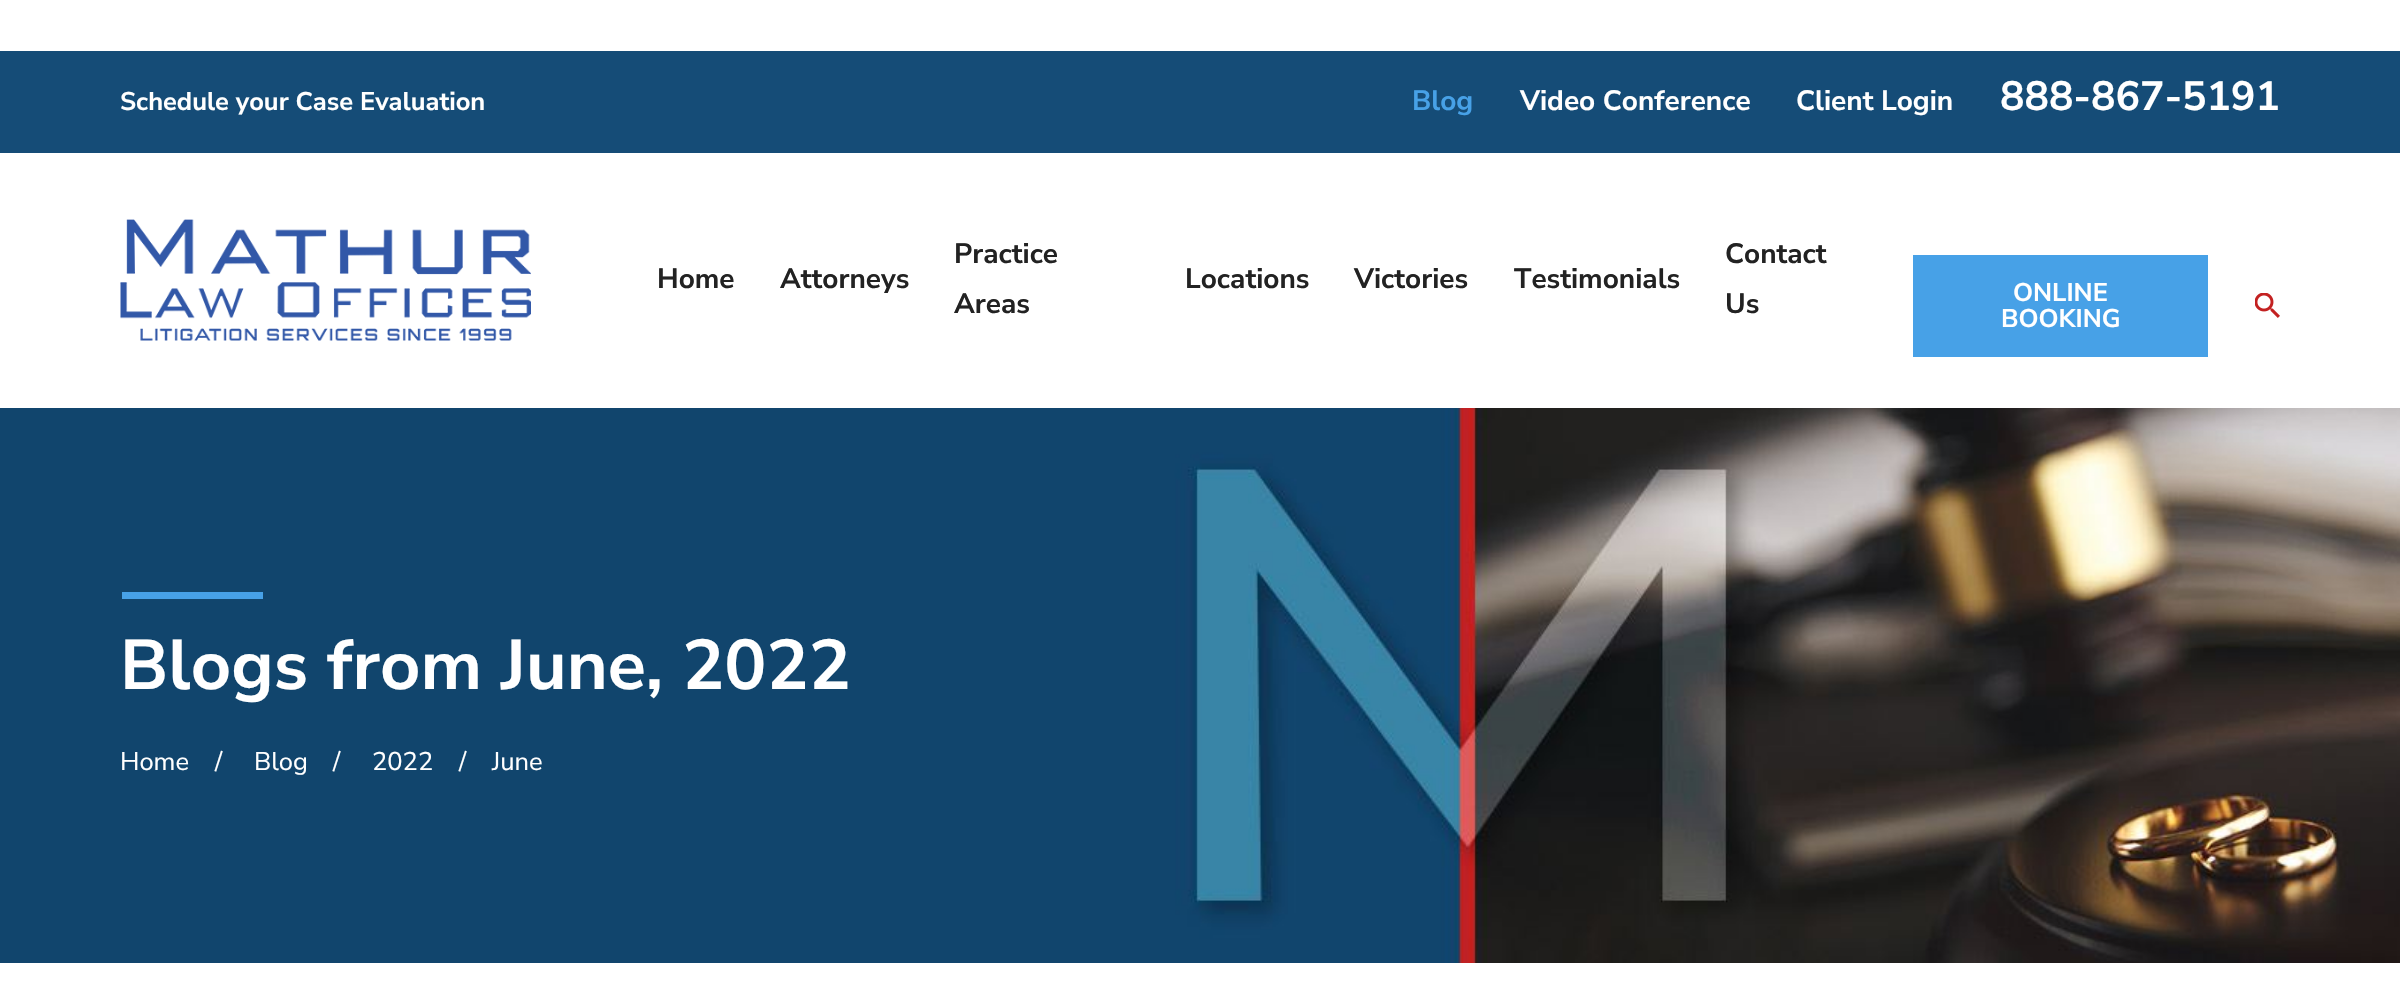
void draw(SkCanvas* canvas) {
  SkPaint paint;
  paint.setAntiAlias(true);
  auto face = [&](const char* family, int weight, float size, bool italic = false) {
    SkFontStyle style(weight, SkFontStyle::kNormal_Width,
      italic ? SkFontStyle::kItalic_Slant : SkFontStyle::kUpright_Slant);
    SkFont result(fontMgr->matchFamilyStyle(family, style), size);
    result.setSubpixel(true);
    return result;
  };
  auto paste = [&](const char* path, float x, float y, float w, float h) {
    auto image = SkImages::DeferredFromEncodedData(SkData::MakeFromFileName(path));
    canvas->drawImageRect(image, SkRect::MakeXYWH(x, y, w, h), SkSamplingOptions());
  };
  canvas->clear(0xffffffff);
  paint.setColor(0xff154c77);
  canvas->drawRect(SkRect::MakeXYWH(0, 51, 2400, 102), paint);
  paste("img/1.png", 120, 219, 411, 122);
  paint.setColor(0xff47a1e7);
  canvas->drawRect(SkRect::MakeXYWH(1913, 255, 295, 102), paint);
  paste("img/2.png", 2255, 293, 25, 25);
  paste("img/3.png", 0, 408, 2400, 555);
  canvas->drawRect(SkRect::MakeXYWH(122, 592, 141, 7), paint);
  auto f0 = face("Nunito Sans", 700, 25.5f);
  paint.setColor(0xffffffff);
  canvas->drawString("Schedule your Case Evaluation", 120, 110, f0, paint);
  auto f1 = face("Nunito Sans", 700, 28);
  paint.setColor(0xff47a1e7);
  canvas->drawString("Blog", 1412, 110, f1, paint);
  paint.setColor(0xffffffff);
  canvas->drawString("Video Conference", 1520, 110, f1, paint);
  canvas->drawString("Client Login", 1796, 110, f1, paint);
  auto f2 = face("Nunito Sans", 700, 40.75f);
  canvas->drawString("888-867-5191", 2000, 110, f2, paint);
  paint.setColor(0xff222222);
  {
    const struct { const char* s; float x, y; } items[] = {
      {"Home", 657, 288},
      {"Attorneys", 780, 288},
      {"Practice", 954, 263},
      {"Areas", 954, 313},
      {"Locations", 1185, 288},
      {"Victories", 1354, 288},
      {"Testimonials", 1514, 288},
      {"Contact", 1725, 263},
      {"Us", 1725, 313},
    };
    for (auto [s, x, y] : items) {
      canvas->drawString(s, x, y, f1, paint);
    }
  }
  paint.setColor(0xffffffff);
  canvas->drawString("ONLINE", 2013, 301, f0, paint);
  canvas->drawString("BOOKING", 2001, 327, f0, paint);
  auto f3 = face("Nunito Sans", 700, 70.25f);
  canvas->drawString("Blogs from June, 2022", 120, 689, f3, paint);
  auto f4 = face("Nunito Sans", 400, 25.5f);
  {
    const struct { const char* s; float x, y; } items[] = {
      {"Home", 120, 770},
      {"/", 215, 770},
      {"Blog", 254, 770},
      {"/", 333, 770},
      {"2022", 372, 770},
      {"/", 459, 770},
      {"June", 492, 770},
    };
    for (auto [s, x, y] : items) {
      canvas->drawString(s, x, y, f4, paint);
    }
  }
}
